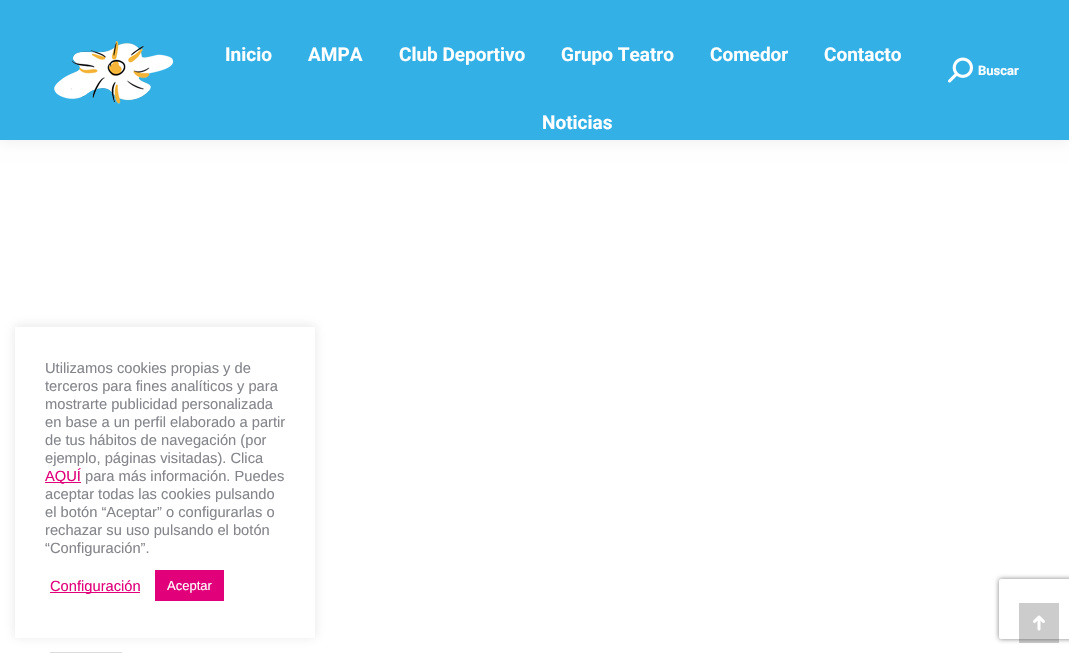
void draw(SkCanvas* canvas) {
  SkPaint paint;
  paint.setAntiAlias(true);
  auto face = [&](const char* family, int weight, float size, bool italic = false) {
    SkFontStyle style(weight, SkFontStyle::kNormal_Width,
      italic ? SkFontStyle::kItalic_Slant : SkFontStyle::kUpright_Slant);
    SkFont result(fontMgr->matchFamilyStyle(family, style), size);
    result.setSubpixel(true);
    return result;
  };
  auto paste = [&](const char* path, float x, float y, float w, float h) {
    auto image = SkImages::DeferredFromEncodedData(SkData::MakeFromFileName(path));
    canvas->drawImageRect(image, SkRect::MakeXYWH(x, y, w, h), SkSamplingOptions());
  };
  auto shape = [&](const char* data, bool evenOdd = false) {
    SkPath result = *SkParsePath::FromSVGString(data);
    if (evenOdd) result.setFillType(SkPathFillType::kEvenOdd);
    return result;
  };
  canvas->clear(0xffffffff);
  paint.setColor(0x12000000);
  paint.setMaskFilter(SkMaskFilter::MakeBlur(kNormal_SkBlurStyle, 7.5f));
  canvas->drawRect(SkRect::MakeXYWH(-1, -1, 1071, 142), paint);
  paint.setMaskFilter(nullptr);
  paint.setColor(0xff33b1e6);
  canvas->drawRect(SkRect::MakeXYWH(0, 0, 1069, 140), paint);
  paste("img/1.png", 54, 41, 120, 63);
  paste("img/2.png", 948, 57, 25, 26);
  paint.setColor(0xffdcdcde);
  canvas->drawRect(SkRect::MakeXYWH(50, 652, 72, 1), paint);
  canvas->save();
  canvas->clipPath(shape("M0 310H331V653H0ZM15 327H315V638H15Z", true), true);
  paint.setColor(0x4dacabab);
  paint.setMaskFilter(SkMaskFilter::MakeBlur(kNormal_SkBlurStyle, 5));
  canvas->drawRect(SkRect::MakeXYWH(15, 326, 300, 311), paint);
  paint.setMaskFilter(nullptr);
  canvas->restore();
  {
    const struct { float x, y, w, h; SkColor color; } items[] = {
      {45, 482, 36, 1, 0xffe1007a},
      {50, 592, 90, 1, 0xffe1007a},
      {155, 570, 69, 31, 0xffe1007a},
    };
    for (auto [x, y, w, h, color] : items) {
      paint.setColor(color);
      canvas->drawRect(SkRect::MakeXYWH(x, y, w, h), paint);
    }
  }
  canvas->save();
  canvas->clipPath(shape("M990 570H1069V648H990ZM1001 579H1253C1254 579 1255 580 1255 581V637C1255 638 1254 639 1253 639H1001C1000 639 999 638 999 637V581C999 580 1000 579 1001 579Z", true), true);
  paint.setColor(0xff808080);
  paint.setMaskFilter(SkMaskFilter::MakeBlur(kNormal_SkBlurStyle, 2.5f));
  canvas->drawRoundRect(SkRect::MakeXYWH(999, 579, 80, 60), 2, 2, paint);
  paint.setMaskFilter(nullptr);
  canvas->restore();
  paint.setColor(0x33000000);
  canvas->drawRect(SkRect::MakeXYWH(1019, 603, 40, 40), paint);
  paste("img/3.png", 1033, 615, 12, 16);
  auto f0 = face("Roboto", 700, 19);
  paint.setColor(0xffffffff);
  {
    const struct { const char* s; float x, y; } items[] = {
      {"Inicio", 225, 61},
      {"AMPA", 308, 61},
      {"Club Deportivo", 399, 61},
      {"Grupo Teatro", 561, 61},
      {"Comedor", 710, 61},
      {"Contacto", 824, 61},
      {"Noticias", 542, 129},
    };
    for (auto [s, x, y] : items) {
      canvas->drawString(s, x, y, f0, paint);
    }
  }
  auto f1 = face("Roboto", 700, 13);
  canvas->drawString("Buscar", 978, 75, f1, paint);
  auto f2 = face("Liberation Sans", 400, 14.7f);
  paint.setColor(0xff85868c);
  {
    const struct { const char* s; float x, y; } items[] = {
      {"Utilizamos cookies propias y de", 45, 373},
      {"terceros para fines analíticos y para", 45, 391},
      {"mostrarte publicidad personalizada", 45, 409},
      {"en base a un perfil elaborado a partir", 45, 427},
      {"de tus hábitos de navegación (por", 45, 445},
      {"ejemplo, páginas visitadas). Clica", 45, 463},
    };
    for (auto [s, x, y] : items) {
      canvas->drawString(s, x, y, f2, paint);
    }
  }
  paint.setColor(0xffe1007a);
  canvas->drawString("AQUÍ", 45, 481, f2, paint);
  paint.setColor(0xff85868c);
  {
    const struct { const char* s; float x, y; } items[] = {
      {"para más información. Puedes", 85, 481},
      {"aceptar todas las cookies pulsando", 45, 499},
      {"el botón “Aceptar” o configurarlas o", 45, 517},
      {"rechazar su uso pulsando el botón", 45, 535},
      {"“Configuración”.", 45, 553},
    };
    for (auto [s, x, y] : items) {
      canvas->drawString(s, x, y, f2, paint);
    }
  }
  paint.setColor(0xffe1007a);
  canvas->drawString("Configuración", 50, 591, f2, paint);
  auto f3 = face("Liberation Sans", 400, 13);
  paint.setColor(0xffffffff);
  canvas->drawString("Aceptar", 167, 590, f3, paint);
}
